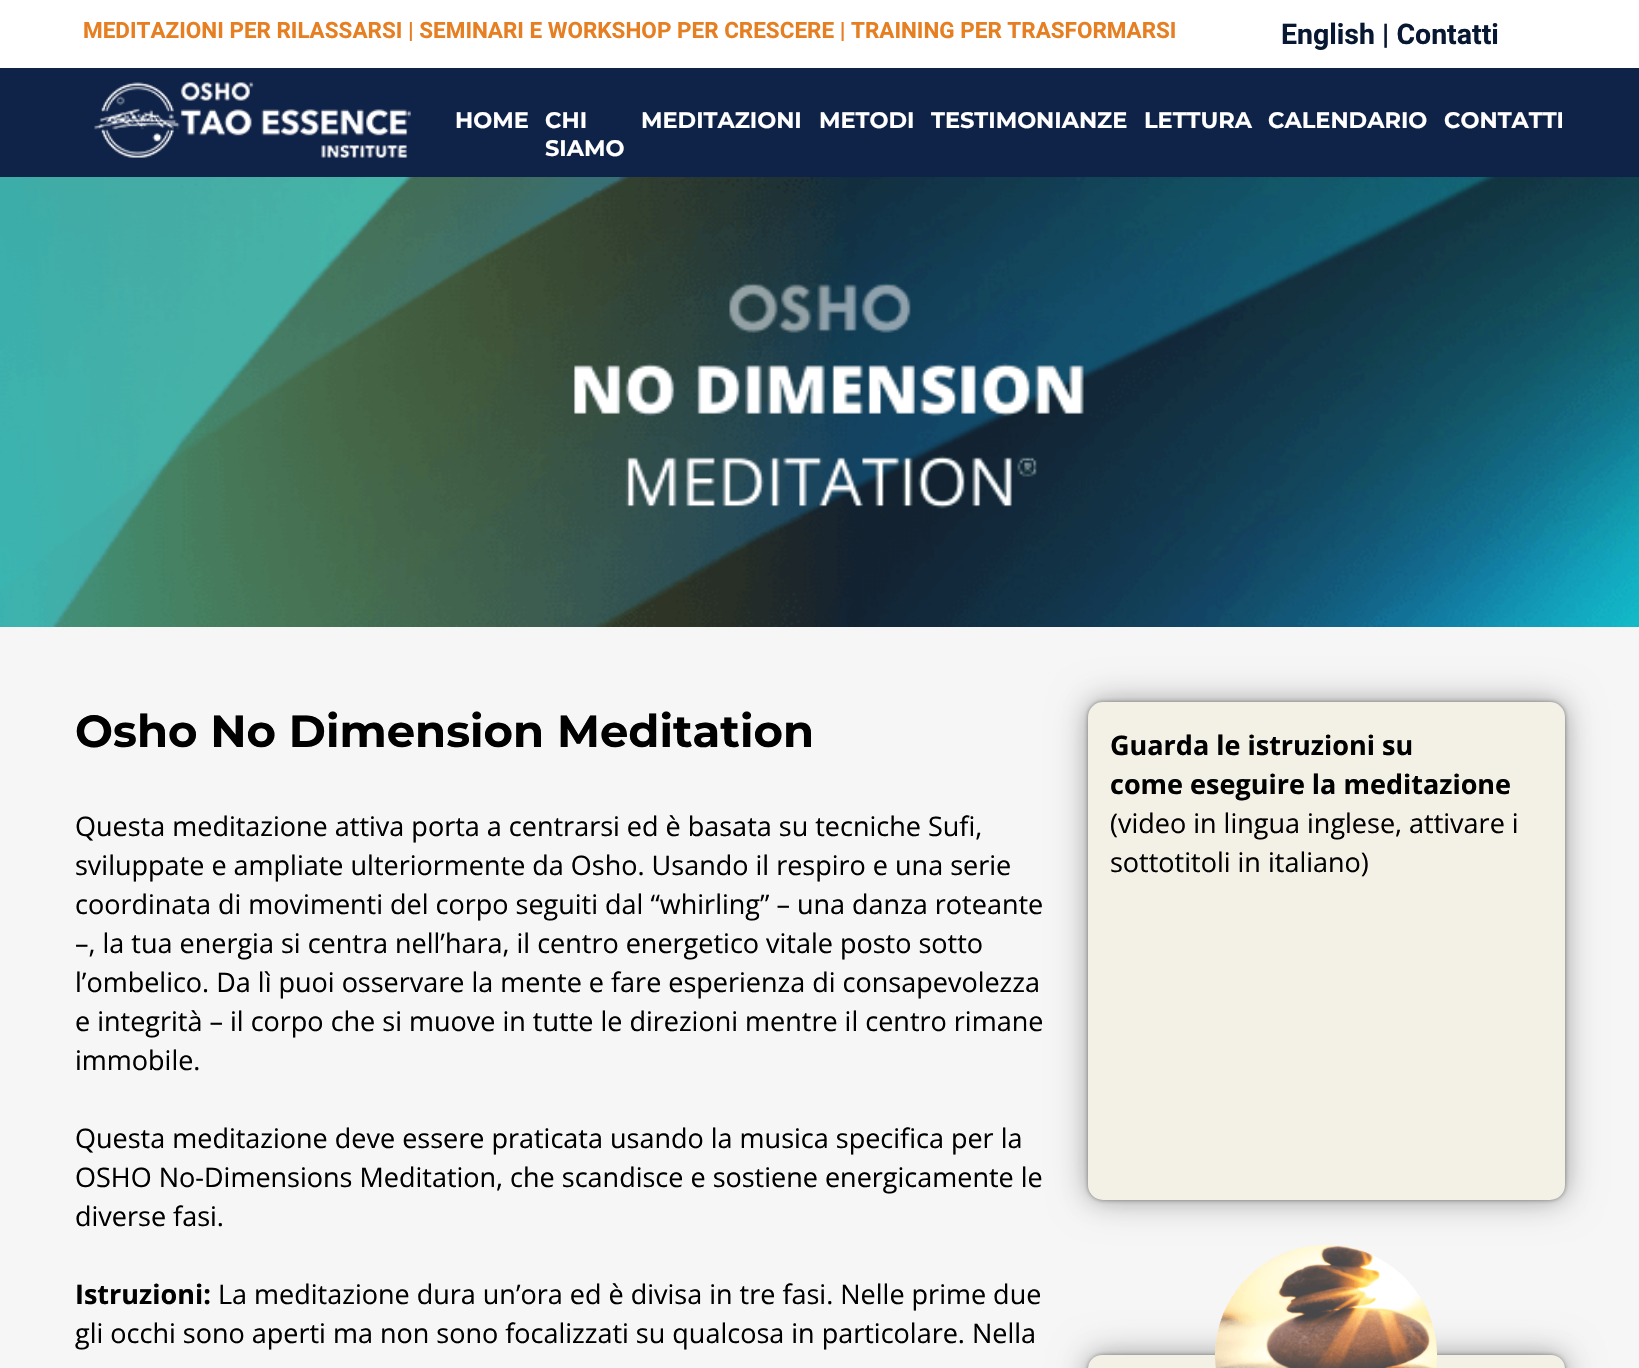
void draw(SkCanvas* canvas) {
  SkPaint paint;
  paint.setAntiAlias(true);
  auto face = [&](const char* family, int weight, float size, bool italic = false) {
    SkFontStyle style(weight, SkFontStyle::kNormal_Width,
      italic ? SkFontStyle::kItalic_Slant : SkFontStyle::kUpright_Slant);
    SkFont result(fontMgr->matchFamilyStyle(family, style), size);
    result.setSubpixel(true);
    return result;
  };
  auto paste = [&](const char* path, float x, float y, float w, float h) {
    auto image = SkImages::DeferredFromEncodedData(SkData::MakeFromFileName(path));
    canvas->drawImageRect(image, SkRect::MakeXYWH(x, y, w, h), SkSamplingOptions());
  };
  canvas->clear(0xffffffff);
  paint.setColor(0xff0f2247);
  canvas->drawRect(SkRect::MakeXYWH(0, 68, 1639, 109), paint);
  paste("img/1.png", 94, 82, 317, 76);
  paste("img/2.png", 0, 177, 1639, 450);
  paint.setColor(0xfff7f6f6);
  canvas->drawRect(SkRect::MakeXYWH(0, 627, 1639, 741), paint);
  paint.setColor(0x66000000);
  paint.setMaskFilter(SkMaskFilter::MakeBlur(kNormal_SkBlurStyle, 2));
  canvas->drawRoundRect(SkRect::MakeXYWH(1088, 702, 477, 498), 15, 15, paint);
  paint.setMaskFilter(nullptr);
  paint.setColor(0x33000000);
  paint.setMaskFilter(SkMaskFilter::MakeBlur(kNormal_SkBlurStyle, 11));
  canvas->drawRoundRect(SkRect::MakeXYWH(1088, 702, 477, 498), 15, 15, paint);
  paint.setMaskFilter(nullptr);
  paint.setMaskFilter(SkMaskFilter::MakeBlur(kNormal_SkBlurStyle, 19));
  canvas->drawRoundRect(SkRect::MakeXYWH(1088, 702, 477, 498), 15, 15, paint);
  paint.setMaskFilter(nullptr);
  paint.setColor(0xfff3f0e6);
  canvas->drawRoundRect(SkRect::MakeXYWH(1088, 702, 477, 498), 15, 15, paint);
  paint.setColor(0x66000000);
  paint.setMaskFilter(SkMaskFilter::MakeBlur(kNormal_SkBlurStyle, 2));
  canvas->drawRoundRect(SkRect::MakeXYWH(1088, 1355, 477, 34), 15, 15, paint);
  paint.setMaskFilter(nullptr);
  paint.setColor(0x33000000);
  paint.setMaskFilter(SkMaskFilter::MakeBlur(kNormal_SkBlurStyle, 11));
  canvas->drawRoundRect(SkRect::MakeXYWH(1088, 1355, 477, 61), 15, 15, paint);
  paint.setMaskFilter(nullptr);
  paint.setMaskFilter(SkMaskFilter::MakeBlur(kNormal_SkBlurStyle, 19));
  canvas->drawRoundRect(SkRect::MakeXYWH(1088, 1355, 477, 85), 15, 15, paint);
  paint.setMaskFilter(nullptr);
  paint.setColor(0xfff3f0e6);
  canvas->drawRoundRect(SkRect::MakeXYWH(1088, 1355, 477, 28), 15, 15, paint);
  paste("img/3.png", 1215, 1245, 222, 123);
  auto f0 = face("Roboto", 700, 22.5f);
  paint.setColor(0xffe67e22);
  canvas->drawString("MEDITAZIONI PER RILASSARSI | SEMINARI E WORKSHOP PER CRESCERE | TRAINING PER TRASFORMARSI", 83, 38, f0, paint);
  auto f1 = face("Roboto", 700, 28.5f);
  paint.setColor(0xff091832);
  canvas->drawString("English | Contatti", 1281, 44, f1, paint);
  auto f2 = face("Montserrat", 700, 22.5f);
  paint.setColor(0xffffffff);
  {
    const struct { const char* s; float x, y; } items[] = {
      {"HOME", 455, 128},
      {"CHI", 545, 128},
      {"SIAMO", 545, 156},
      {"MEDITAZIONI", 641, 128},
      {"METODI", 819, 128},
      {"TESTIMONIANZE", 931, 128},
      {"LETTURA", 1144, 128},
      {"CALENDARIO", 1268, 128},
      {"CONTATTI", 1444, 128},
    };
    for (auto [s, x, y] : items) {
      canvas->drawString(s, x, y, f2, paint);
    }
  }
  auto f3 = face("Montserrat", 700, 45);
  paint.setColor(0xff000000);
  canvas->drawString("Osho No Dimension Meditation", 75, 747, f3, paint);
  auto f4 = face("Open Sans", 400, 27);
  {
    const struct { const char* s; float x, y; } items[] = {
      {"Questa meditazione attiva porta a centrarsi ed è basata su tecniche Sufi,", 75, 836},
      {"sviluppate e ampliate ulteriormente da Osho. Usando il respiro e una serie", 75, 875},
      {"coordinata di movimenti del corpo seguiti dal “whirling” – una danza roteante", 75, 914},
      {"–, la tua energia si centra nell’hara, il centro energetico vitale posto sotto", 75, 953},
      {"l’ombelico. Da lì puoi osservare la mente e fare esperienza di consapevolezza", 75, 992},
      {"e integrità – il corpo che si muove in tutte le direzioni mentre il centro rimane", 75, 1031},
      {"immobile.", 75, 1070},
      {"Questa meditazione deve essere praticata usando la musica specifica per la", 75, 1148},
      {"OSHO No-Dimensions Meditation, che scandisce e sostiene energicamente le", 75, 1187},
      {"diverse fasi.", 75, 1226},
    };
    for (auto [s, x, y] : items) {
      canvas->drawString(s, x, y, f4, paint);
    }
  }
  auto f5 = face("Open Sans", 700, 27);
  canvas->drawString("Istruzioni:", 75, 1304, f5, paint);
  canvas->drawString("La meditazione dura un’ora ed è divisa in tre fasi. Nelle prime due", 218, 1304, f4, paint);
  canvas->drawString("gli occhi sono aperti ma non sono focalizzati su qualcosa in particolare. Nella", 75, 1343, f4, paint);
  canvas->drawString("Guarda le istruzioni su", 1110, 755, f5, paint);
  canvas->drawString("come eseguire la meditazione", 1110, 794, f5, paint);
  canvas->drawString("(video in lingua inglese, attivare i", 1110, 833, f4, paint);
  canvas->drawString("sottotitoli in italiano)", 1110, 872, f4, paint);
}
